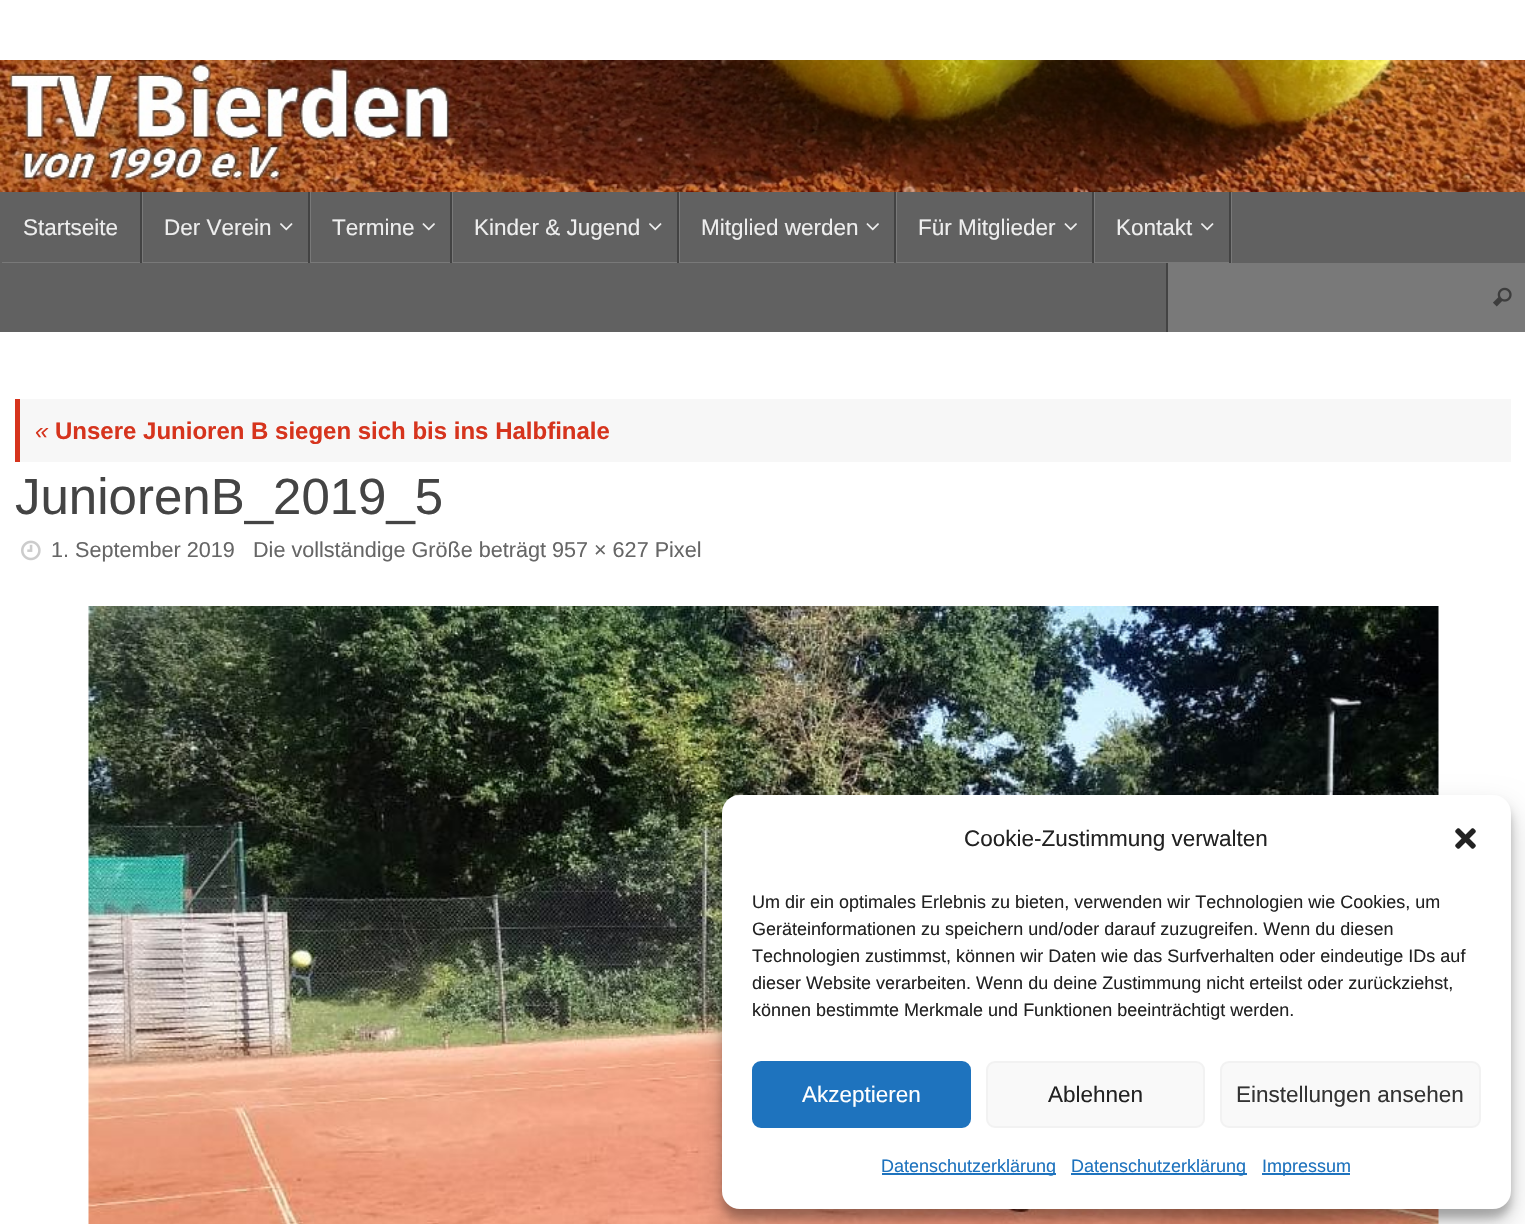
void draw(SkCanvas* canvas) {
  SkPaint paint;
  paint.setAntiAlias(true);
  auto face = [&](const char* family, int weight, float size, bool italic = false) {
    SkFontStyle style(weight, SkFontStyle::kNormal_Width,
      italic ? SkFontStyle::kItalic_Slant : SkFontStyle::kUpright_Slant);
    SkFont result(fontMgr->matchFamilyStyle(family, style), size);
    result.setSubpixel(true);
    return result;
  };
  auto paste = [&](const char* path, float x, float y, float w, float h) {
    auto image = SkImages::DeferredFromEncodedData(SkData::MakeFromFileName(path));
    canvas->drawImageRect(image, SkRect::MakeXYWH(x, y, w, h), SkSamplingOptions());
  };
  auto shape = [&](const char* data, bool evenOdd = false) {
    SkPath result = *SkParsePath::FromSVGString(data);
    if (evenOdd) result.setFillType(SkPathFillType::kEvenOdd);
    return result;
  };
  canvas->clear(0xffffffff);
  paste("img/1.png", 0, 60, 1525, 132);
  paint.setColor(0xff616161);
  canvas->drawRect(SkRect::MakeXYWH(0, 192, 1525, 140), paint);
  paint.setColor(0xff797979);
  canvas->drawPath(shape("M2 262V263H143V192H141V262Z"), paint);
  paint.setColor(0xff434343);
  canvas->drawRect(SkRect::MakeXYWH(140, 192, 2, 71), paint);
  paint.setColor(0xff797979);
  canvas->drawPath(shape("M143 262V263H311V192H309V262Z"), paint);
  paint.setColor(0xff434343);
  canvas->drawRect(SkRect::MakeXYWH(308, 192, 2, 71), paint);
  paste("img/2.png", 280, 223, 13, 8);
  paint.setColor(0xff797979);
  canvas->drawPath(shape("M311 262V263H453V192H452V262Z"), paint);
  paint.setColor(0xff434343);
  canvas->drawRect(SkRect::MakeXYWH(450, 192, 2, 71), paint);
  paste("img/3.png", 422, 223, 13, 8);
  paint.setColor(0xff797979);
  canvas->drawPath(shape("M453 262V263H680V192H678V262Z"), paint);
  paint.setColor(0xff434343);
  canvas->drawRect(SkRect::MakeXYWH(677, 192, 2, 71), paint);
  paste("img/2.png", 649, 223, 13, 8);
  paint.setColor(0xff797979);
  canvas->drawPath(shape("M680 262V263H897V192H896V262Z"), paint);
  paint.setColor(0xff434343);
  canvas->drawRect(SkRect::MakeXYWH(894, 192, 2, 71), paint);
  paste("img/3.png", 866, 223, 13, 8);
  paint.setColor(0xff797979);
  canvas->drawPath(shape("M897 262V263H1095V192H1094V262Z"), paint);
  paint.setColor(0xff434343);
  canvas->drawRect(SkRect::MakeXYWH(1092, 192, 2, 71), paint);
  paste("img/3.png", 1064, 223, 13, 8);
  paint.setColor(0xff797979);
  canvas->drawPath(shape("M1095 262V263H1232V192H1230V262Z"), paint);
  paint.setColor(0xff434343);
  canvas->drawRect(SkRect::MakeXYWH(1229, 192, 2, 71), paint);
  paste("img/2.png", 1201, 223, 13, 8);
  paint.setColor(0xff797979);
  canvas->drawRect(SkRect::MakeXYWH(1168, 263, 357, 69), paint);
  paint.setColor(0xff434343);
  canvas->drawRect(SkRect::MakeXYWH(1166, 263, 2, 69), paint);
  paste("img/4.png", 1493, 287, 19, 20);
  paint.setColor(0xfff7f7f7);
  canvas->drawRect(SkRect::MakeXYWH(20, 399, 1491, 63), paint);
  paint.setColor(0xffd6341d);
  canvas->drawRect(SkRect::MakeXYWH(15, 399, 5, 63), paint);
  paste("img/5.png", 21, 540, 20, 21);
  paste("img/6.png", 88, 606, 1351, 618);
  paint.setColor(0x3b000000);
  paint.setMaskFilter(SkMaskFilter::MakeBlur(kNormal_SkBlurStyle, 4.5f));
  canvas->drawRoundRect(SkRect::MakeXYWH(722, 804, 789, 414), 18, 18, paint);
  paint.setMaskFilter(nullptr);
  paint.setColor(0x30000000);
  paint.setMaskFilter(SkMaskFilter::MakeBlur(kNormal_SkBlurStyle, 15));
  canvas->drawRoundRect(SkRect::MakeXYWH(722, 810, 789, 414), 18, 18, paint);
  paint.setMaskFilter(nullptr);
  paint.setColor(0xffffffff);
  canvas->drawRoundRect(SkRect::MakeXYWH(722, 795, 789, 414), 18, 18, paint);
  paste("img/7.png", 1455, 828, 21, 21);
  paint.setColor(0xff1e73be);
  canvas->drawRoundRect(SkRect::MakeXYWH(753, 1062, 217, 65), 8, 8, paint);
  paint.setStroke(true);
  paint.setStrokeWidth(2);
  canvas->drawRoundRect(SkRect::MakeXYWH(753, 1062, 217, 65), 8, 8, paint);
  paint.setStroke(false);
  paint.setColor(0xfff9f9f9);
  canvas->drawRoundRect(SkRect::MakeXYWH(987, 1062, 217, 65), 8, 8, paint);
  paint.setStroke(true);
  paint.setColor(0xfff2f2f2);
  canvas->drawRoundRect(SkRect::MakeXYWH(987, 1062, 217, 65), 8, 8, paint);
  paint.setStroke(false);
  paint.setColor(0xfff9f9f9);
  canvas->drawRoundRect(SkRect::MakeXYWH(1221, 1062, 259, 65), 8, 8, paint);
  paint.setStroke(true);
  paint.setColor(0xfff2f2f2);
  canvas->drawRoundRect(SkRect::MakeXYWH(1221, 1062, 259, 65), 8, 8, paint);
  paint.setStroke(false);
  {
    const struct { float x, y, w, h; SkColor color; } items[] = {
      {882, 1173, 174, 2, 0xff1e73be},
      {1071, 1173, 176, 2, 0xff1e73be},
      {1262, 1173, 88, 2, 0xff1e73be},
    };
    for (auto [x, y, w, h, color] : items) {
      paint.setColor(color);
      canvas->drawRect(SkRect::MakeXYWH(x, y, w, h), paint);
    }
  }
  auto f0 = face("Liberation Sans", 400, 22.5f);
  paint.setColor(0xffeeeeee);
  {
    const struct { const char* s; float x, y; } items[] = {
      {"Startseite", 23, 235},
      {"Der Verein", 164, 235},
      {"Termine", 332, 235},
      {"Kinder & Jugend", 474, 235},
      {"Mitglied werden", 701, 235},
      {"Für Mitglieder", 918, 235},
      {"Kontakt", 1116, 235},
    };
    for (auto [s, x, y] : items) {
      canvas->drawString(s, x, y, f0, paint);
    }
  }
  auto f1 = face("Liberation Sans", 400, 24, true);
  paint.setColor(0xffd6341d);
  canvas->drawString("«", 35, 439, f1, paint);
  auto f2 = face("Liberation Sans", 700, 24);
  canvas->drawString("Unsere Junioren B siegen sich bis ins Halbfinale", 55, 439, f2, paint);
  auto f3 = face("Liberation Sans", 400, 51);
  paint.setColor(0xff444444);
  canvas->drawString("JuniorenB_2019_5", 15, 514, f3, paint);
  auto f4 = face("Liberation Sans", 400, 21.6f);
  paint.setColor(0xff666666);
  canvas->drawString("1. September 2019", 51, 557, f4, paint);
  canvas->drawString("Die vollständige Größe beträgt 957 × 627 Pixel", 253, 557, f4, paint);
  paint.setColor(0xff222222);
  canvas->drawString("Cookie-Zustimmung verwalten", 964, 846, f0, paint);
  auto f5 = face("Liberation Sans", 400, 18);
  {
    const struct { const char* s; float x, y; } items[] = {
      {"Um dir ein optimales Erlebnis zu bieten, verwenden wir Technologien wie Cookies, um", 752, 908},
      {"Geräteinformationen zu speichern und/oder darauf zuzugreifen. Wenn du diesen", 752, 935},
      {"Technologien zustimmst, können wir Daten wie das Surfverhalten oder eindeutige IDs auf", 752, 962},
      {"dieser Website verarbeiten. Wenn du deine Zustimmung nicht erteilst oder zurückziehst,", 752, 989},
      {"können bestimmte Merkmale und Funktionen beeinträchtigt werden.", 752, 1016},
    };
    for (auto [s, x, y] : items) {
      canvas->drawString(s, x, y, f5, paint);
    }
  }
  paint.setColor(0xffffffff);
  canvas->drawString("Akzeptieren", 802, 1102, f0, paint);
  paint.setColor(0xff222222);
  canvas->drawString("Ablehnen", 1048, 1102, f0, paint);
  paint.setColor(0xff333333);
  canvas->drawString("Einstellungen ansehen", 1236, 1102, f0, paint);
  paint.setColor(0xff1e73be);
  {
    const struct { const char* s; float x, y; } items[] = {
      {"Datenschutzerklärung", 881, 1172},
      {"Datenschutzerklärung", 1071, 1172},
      {"Impressum", 1262, 1172},
    };
    for (auto [s, x, y] : items) {
      canvas->drawString(s, x, y, f5, paint);
    }
  }
}
